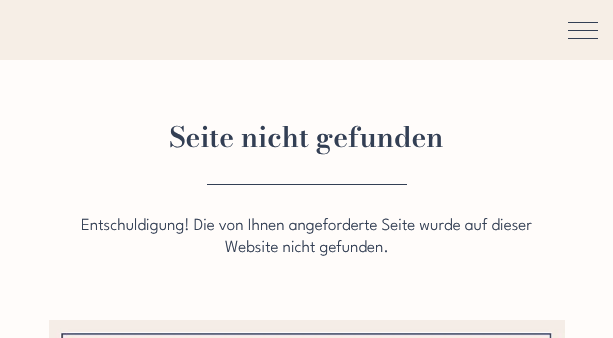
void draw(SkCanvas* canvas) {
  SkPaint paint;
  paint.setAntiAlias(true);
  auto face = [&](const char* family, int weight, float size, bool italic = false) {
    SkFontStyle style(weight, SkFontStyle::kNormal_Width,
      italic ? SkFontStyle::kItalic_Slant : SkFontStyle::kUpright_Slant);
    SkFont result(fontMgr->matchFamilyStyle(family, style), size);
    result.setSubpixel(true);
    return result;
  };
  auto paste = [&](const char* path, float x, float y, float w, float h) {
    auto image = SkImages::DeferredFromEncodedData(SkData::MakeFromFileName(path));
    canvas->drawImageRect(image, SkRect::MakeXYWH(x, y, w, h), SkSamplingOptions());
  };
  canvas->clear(0xfffffcfa);
  {
    const struct { float x, y, w, h; SkColor color; } items[] = {
      {0, 0, 613, 60, 0xfff6eee6},
      {568, 30, 30, 1, 0xff333f54},
      {568, 22, 30, 1, 0xff333f54},
      {568, 38, 30, 1, 0xff333f54},
      {207, 184, 200, 1, 0xff333f54},
    };
    for (auto [x, y, w, h, color] : items) {
      paint.setColor(color);
      canvas->drawRect(SkRect::MakeXYWH(x, y, w, h), paint);
    }
  }
  paste("img/1.png", 49, 320, 516, 18);
  auto f0 = face("Bodoni Moda", 600, 28);
  canvas->drawString("Seite nicht gefunden", 169, 147, f0, paint);
  auto f1 = face("League Spartan", 100, 17);
  canvas->drawString("Entschuldigung! Die von Ihnen angeforderte Seite wurde auf dieser", 81, 230, f1, paint);
  canvas->drawString("Website nicht gefunden.", 225, 252, f1, paint);
}
